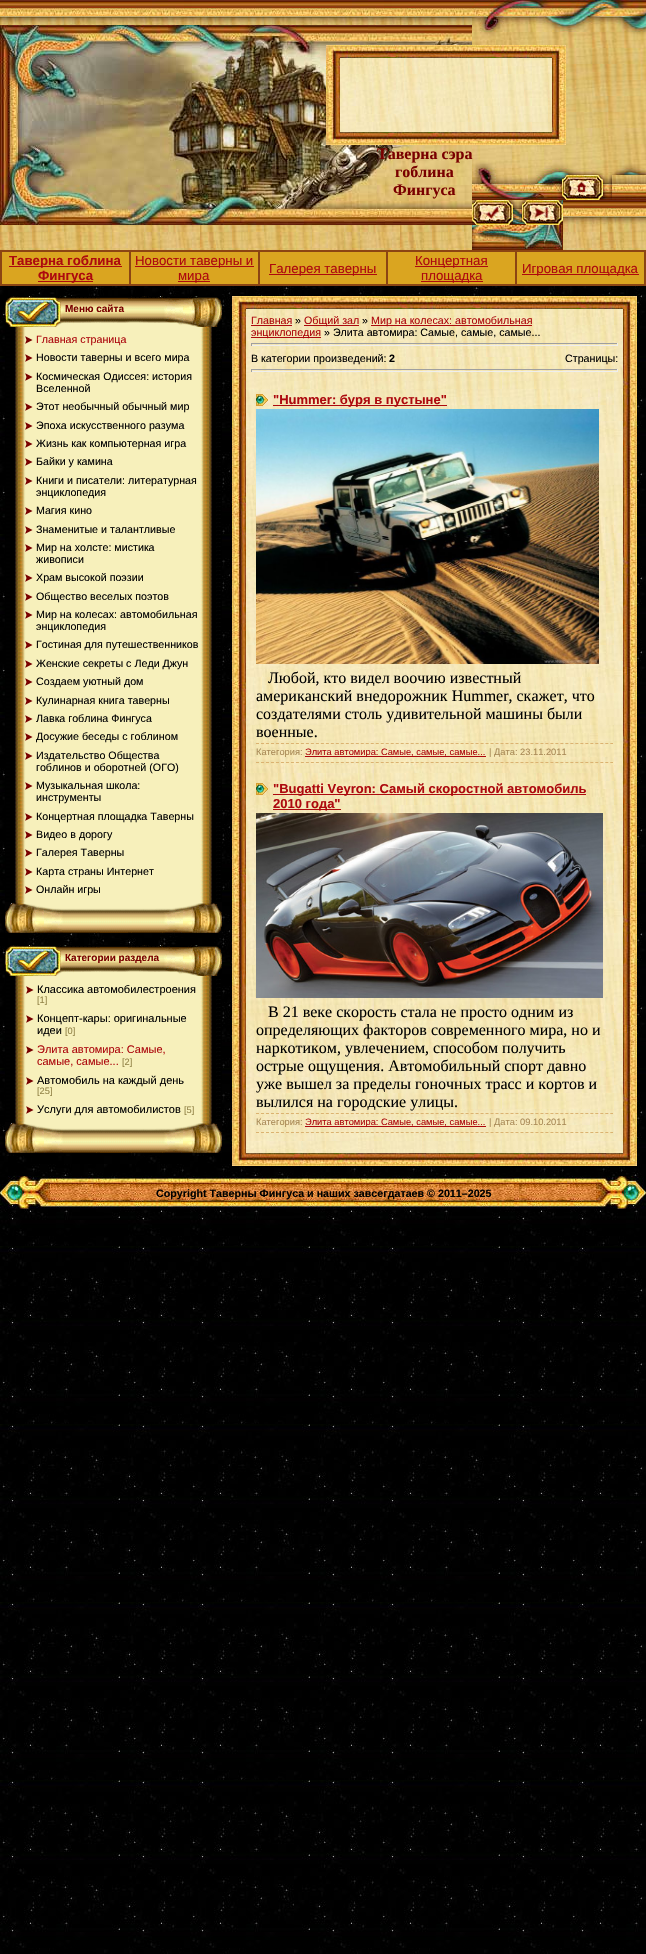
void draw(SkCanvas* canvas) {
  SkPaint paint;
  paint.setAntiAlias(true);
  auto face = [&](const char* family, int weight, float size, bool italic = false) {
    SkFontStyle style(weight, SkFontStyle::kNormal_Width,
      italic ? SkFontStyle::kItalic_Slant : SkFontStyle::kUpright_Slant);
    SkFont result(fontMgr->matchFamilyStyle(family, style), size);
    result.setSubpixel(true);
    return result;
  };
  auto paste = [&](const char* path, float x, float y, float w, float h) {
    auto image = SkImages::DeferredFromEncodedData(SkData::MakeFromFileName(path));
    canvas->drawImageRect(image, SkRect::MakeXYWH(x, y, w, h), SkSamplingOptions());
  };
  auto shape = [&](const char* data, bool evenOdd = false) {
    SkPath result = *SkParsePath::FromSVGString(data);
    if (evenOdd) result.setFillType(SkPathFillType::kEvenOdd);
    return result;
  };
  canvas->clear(0xffffffff);
  paste("img/1.png", 0, 286, 646, 1668);
  paste("img/11.png", 0, 0, 646, 250);
  paste("img/12.png", 0, 25, 377, 200);
  paste("img/2.png", 326, 45, 14, 13);
  paste("img/13.png", 377, 25, 95, 200);
  paste("img/14.png", 472, 0, 174, 175);
  paste("img/3.png", 340, 45, 212, 13);
  paste("img/4.png", 552, 45, 14, 13);
  paste("img/5.png", 326, 58, 14, 74);
  paste("img/6.png", 340, 58, 212, 74);
  paste("img/7.png", 552, 58, 14, 74);
  paste("img/8.png", 326, 132, 14, 13);
  paste("img/9.png", 340, 132, 212, 13);
  paste("img/10.png", 552, 132, 14, 13);
  paste("img/15.png", 472, 175, 90, 25);
  paste("img/16.png", 562, 175, 41, 25);
  paste("img/17.png", 603, 175, 9, 25);
  paste("img/18.png", 472, 200, 41, 25);
  paste("img/19.png", 513, 200, 9, 25);
  paste("img/20.png", 522, 200, 41, 25);
  paste("img/21.png", 472, 225, 91, 25);
  {
    const struct { float x, y, w, h; SkColor color; } items[] = {
      {2, 252, 642, 32, 0xffdaa520},
      {515, 250, 131, 2, 0xff8b4513},
      {644, 250, 2, 36, 0xff8b4513},
      {515, 284, 131, 2, 0xff8b4513},
      {515, 250, 2, 36, 0xff8b4513},
      {386, 250, 131, 2, 0xff8b4513},
      {386, 284, 131, 2, 0xff8b4513},
      {386, 250, 2, 36, 0xff8b4513},
      {258, 250, 130, 2, 0xff8b4513},
      {258, 284, 130, 2, 0xff8b4513},
      {258, 250, 2, 36, 0xff8b4513},
      {129, 250, 131, 2, 0xff8b4513},
      {129, 284, 131, 2, 0xff8b4513},
      {129, 250, 2, 36, 0xff8b4513},
      {0, 250, 131, 2, 0xff8b4513},
      {0, 284, 131, 2, 0xff8b4513},
      {0, 250, 2, 36, 0xff8b4513},
      {9, 266, 113, 1, 0xffad090e},
      {38, 281, 55, 1, 0xffad090e},
      {135, 266, 119, 1, 0xffad090e},
      {178, 281, 32, 1, 0xffad090e},
      {269, 274, 108, 1, 0xffad090e},
      {415, 266, 73, 1, 0xffad090e},
      {421, 281, 62, 1, 0xffad090e},
      {522, 274, 117, 1, 0xffad090e},
    };
    for (auto [x, y, w, h, color] : items) {
      paint.setColor(color);
      canvas->drawRect(SkRect::MakeXYWH(x, y, w, h), paint);
    }
  }
  paste("img/22.png", 5, 328, 217, 574);
  paste("img/23.png", 5, 296, 217, 32);
  paste("img/24.png", 25, 336, 8, 8);
  paste("img/25.png", 25, 354, 8, 8);
  paste("img/26.png", 25, 373, 8, 8);
  paste("img/27.png", 25, 403, 8, 8);
  paste("img/25.png", 25, 422, 8, 8);
  paste("img/24.png", 25, 440, 8, 8);
  paste("img/25.png", 25, 458, 8, 8);
  paste("img/26.png", 25, 477, 8, 8);
  paste("img/27.png", 25, 507, 8, 8);
  paste("img/25.png", 25, 526, 8, 8);
  paste("img/24.png", 25, 544, 8, 8);
  paste("img/25.png", 25, 574, 8, 8);
  paste("img/26.png", 25, 593, 8, 8);
  paste("img/27.png", 25, 611, 8, 8);
  paste("img/26.png", 25, 641, 8, 8);
  paste("img/24.png", 25, 660, 8, 8);
  paste("img/25.png", 25, 678, 8, 8);
  paste("img/26.png", 25, 697, 8, 8);
  paste("img/27.png", 25, 715, 8, 8);
  paste("img/26.png", 25, 733, 8, 8);
  paste("img/24.png", 25, 752, 8, 8);
  paste("img/25.png", 25, 782, 8, 8);
  paste("img/26.png", 25, 813, 8, 8);
  paste("img/27.png", 25, 831, 8, 8);
  paste("img/26.png", 25, 849, 8, 8);
  paste("img/24.png", 25, 868, 8, 8);
  paste("img/25.png", 25, 886, 8, 8);
  paste("img/28.png", 5, 902, 217, 31);
  paste("img/29.png", 5, 977, 217, 145);
  paste("img/23.png", 5, 945, 217, 32);
  paste("img/30.png", 26, 986, 8, 8);
  paste("img/30.png", 26, 1015, 8, 8);
  paste("img/30.png", 26, 1046, 8, 8);
  paste("img/30.png", 26, 1077, 8, 8);
  paste("img/30.png", 26, 1106, 8, 8);
  paste("img/28.png", 5, 1122, 217, 31);
  paste("img/2.png", 232, 296, 14, 13);
  paste("img/31.png", 246, 296, 377, 13);
  paste("img/4.png", 623, 296, 14, 13);
  paste("img/32.png", 232, 309, 14, 844);
  paste("img/33.png", 246, 309, 377, 844);
  {
    const struct { float x, y, w, h; SkColor color; } items[] = {
      {251, 325, 41, 1, 0xffad090e},
      {304, 325, 55, 1, 0xffad090e},
      {371, 325, 161, 1, 0xffad090e},
      {251, 337, 70, 1, 0xffad090e},
      {251, 343, 367, 1, 0xff9f9f9f},
      {617, 343, 1, 3, 0xffeeeeee},
      {251, 345, 367, 1, 0xffeeeeee},
      {251, 343, 1, 3, 0xff9f9f9f},
      {251, 369, 367, 1, 0xff9f9f9f},
      {617, 369, 1, 3, 0xffeeeeee},
      {251, 371, 367, 1, 0xffeeeeee},
      {251, 369, 1, 3, 0xff9f9f9f},
    };
    for (auto [x, y, w, h, color] : items) {
      paint.setColor(color);
      canvas->drawRect(SkRect::MakeXYWH(x, y, w, h), paint);
    }
  }
  paste("img/34.png", 256, 394, 12, 12);
  paint.setColor(0xffad090e);
  canvas->drawRect(SkRect::MakeXYWH(273, 405, 174, 1), paint);
  paste("img/35.png", 256, 409, 343, 255);
  paint.setStroke(true);
  paint.setStrokeWidth(1);
  paint.setColor(0xffdbb270);
  paint.setPathEffect(SkDashPathEffect::Make({{3, 1.99f}}, 0));
  canvas->drawPath(shape("M256 743.5H613"), paint);
  paint.setPathEffect(nullptr);
  paint.setPathEffect(SkDashPathEffect::Make({{3, 1.99f}}, 0));
  canvas->drawPath(shape("M256 762.5H613"), paint);
  paint.setPathEffect(nullptr);
  paint.setStroke(false);
  paint.setColor(0xffad090e);
  canvas->drawRect(SkRect::MakeXYWH(305, 756, 181, 1), paint);
  paste("img/36.png", 256, 783, 12, 12);
  canvas->drawRect(SkRect::MakeXYWH(273, 794, 313, 1), paint);
  canvas->drawRect(SkRect::MakeXYWH(273, 809, 68, 1), paint);
  paste("img/37.png", 256, 813, 347, 185);
  paint.setStroke(true);
  paint.setColor(0xffdbb270);
  paint.setPathEffect(SkDashPathEffect::Make({{3, 1.99f}}, 0));
  canvas->drawPath(shape("M256 1113.5H613"), paint);
  paint.setPathEffect(nullptr);
  paint.setPathEffect(SkDashPathEffect::Make({{3, 1.99f}}, 0));
  canvas->drawPath(shape("M256 1132.5H613"), paint);
  paint.setPathEffect(nullptr);
  paint.setStroke(false);
  paint.setColor(0xffad090e);
  canvas->drawRect(SkRect::MakeXYWH(305, 1126, 181, 1), paint);
  paste("img/38.png", 623, 309, 14, 844);
  paste("img/8.png", 232, 1153, 14, 13);
  paste("img/39.png", 246, 1153, 377, 13);
  paste("img/10.png", 623, 1153, 14, 13);
  paste("img/40.png", 50, 1176, 546, 33);
  paste("img/41.png", 0, 1176, 50, 33);
  paste("img/42.png", 596, 1176, 50, 33);
  auto f0 = face("Liberation Serif", 700, 16);
  paint.setColor(0xff790000);
  {
    const struct { const char* s; float x, y; } items[] = {
      {"Таверна сэра", 377, 159},
      {"гоблина", 395, 177},
      {"Фингуса", 393, 195},
    };
    for (auto [s, x, y] : items) {
      canvas->drawString(s, x, y, f0, paint);
    }
  }
  auto f1 = face("Liberation Sans", 700, 13.25f);
  paint.setColor(0xffad090e);
  canvas->drawString("Таверна гоблина", 9, 265, f1, paint);
  canvas->drawString("Фингуса", 38, 280, f1, paint);
  auto f2 = face("Liberation Sans", 400, 13.25f);
  {
    const struct { const char* s; float x, y; } items[] = {
      {"Новости таверны и", 135, 265},
      {"мира", 178, 280},
      {"Галерея таверны", 269, 273},
      {"Концертная", 415, 265},
      {"площадка", 421, 280},
      {"Игровая площадка", 522, 273},
    };
    for (auto [s, x, y] : items) {
      canvas->drawString(s, x, y, f2, paint);
    }
  }
  auto f3 = face("Liberation Sans", 700, 10);
  paint.setColor(0xff790000);
  canvas->drawString("Меню сайта", 65, 312, f3, paint);
  auto f4 = face("Liberation Sans", 400, 10.7f);
  paint.setColor(0xffad090e);
  canvas->drawString("Главная страница", 36, 343, f4, paint);
  paint.setColor(0xff000000);
  {
    const struct { const char* s; float x, y; } items[] = {
      {"Новости таверны и всего мира", 36, 361},
      {"Космическая Одиссея: история", 36, 380},
      {"Вселенной", 36, 392},
      {"Этот необычный обычный мир", 36, 410},
      {"Эпоха искусственного разума", 36, 429},
      {"Жизнь как компьютерная игра", 36, 447},
      {"Байки у камина", 36, 465},
      {"Книги и писатели: литературная", 36, 484},
      {"энциклопедия", 36, 496},
      {"Магия кино", 36, 514},
      {"Знаменитые и талантливые", 36, 533},
      {"Мир на холсте: мистика", 36, 551},
      {"живописи", 36, 563},
      {"Храм высокой поэзии", 36, 581},
      {"Общество веселых поэтов", 36, 600},
      {"Мир на колесах: автомобильная", 36, 618},
      {"энциклопедия", 36, 630},
      {"Гостиная для путешественников", 36, 648},
      {"Женские секреты с Леди Джун", 36, 667},
      {"Создаем уютный дом", 36, 685},
      {"Кулинарная книга таверны", 36, 704},
      {"Лавка гоблина Фингуса", 36, 722},
      {"Досужие беседы с гоблином", 36, 740},
      {"Издательство Общества", 36, 759},
      {"гоблинов и оборотней (ОГО)", 36, 771},
      {"Музыкальная школа:", 36, 789},
      {"инструменты", 36, 801},
      {"Концертная площадка Таверны", 36, 820},
      {"Видео в дорогу", 36, 838},
      {"Галерея Таверны", 36, 856},
      {"Карта страны Интернет", 36, 875},
      {"Онлайн игры", 36, 893},
    };
    for (auto [s, x, y] : items) {
      canvas->drawString(s, x, y, f4, paint);
    }
  }
  paint.setColor(0xff790000);
  canvas->drawString("Категории раздела", 65, 961, f3, paint);
  auto f5 = face("Liberation Sans", 400, 11);
  paint.setColor(0xff000000);
  canvas->drawString("Классика автомобилестроения", 37, 993, f5, paint);
  auto f6 = face("Liberation Sans", 400, 9.3f);
  paint.setColor(0xff948549);
  canvas->drawString("[1]", 37, 1003, f6, paint);
  paint.setColor(0xff000000);
  canvas->drawString("Концепт-кары: оригинальные", 37, 1022, f5, paint);
  canvas->drawString("идеи", 37, 1034, f5, paint);
  paint.setColor(0xff948549);
  canvas->drawString("[0]", 65, 1034, f6, paint);
  paint.setColor(0xffad090e);
  canvas->drawString("Элита автомира: Самые,", 37, 1053, f5, paint);
  canvas->drawString("самые, самые...", 37, 1065, f5, paint);
  paint.setColor(0xff948549);
  canvas->drawString("[2]", 122, 1065, f6, paint);
  paint.setColor(0xff000000);
  canvas->drawString("Автомобиль на каждый день", 37, 1084, f5, paint);
  paint.setColor(0xff948549);
  canvas->drawString("[25]", 37, 1094, f6, paint);
  paint.setColor(0xff000000);
  canvas->drawString("Услуги для автомобилистов", 37, 1113, f5, paint);
  paint.setColor(0xff948549);
  canvas->drawString("[5]", 184, 1113, f6, paint);
  paint.setColor(0xffad090e);
  canvas->drawString("Главная", 251, 324, f4, paint);
  paint.setColor(0xff000000);
  canvas->drawString("»", 295, 324, f4, paint);
  paint.setColor(0xffad090e);
  canvas->drawString("Общий зал", 304, 324, f4, paint);
  paint.setColor(0xff000000);
  canvas->drawString("»", 362, 324, f4, paint);
  paint.setColor(0xffad090e);
  canvas->drawString("Мир на колесах: автомобильная", 371, 324, f4, paint);
  canvas->drawString("энциклопедия", 251, 336, f4, paint);
  paint.setColor(0xff000000);
  canvas->drawString("» Элита автомира: Самые, самые, самые...", 324, 336, f4, paint);
  canvas->drawString("В категории произведений:", 251, 362, f4, paint);
  auto f7 = face("Liberation Sans", 700, 10.7f);
  canvas->drawString("2", 389, 362, f7, paint);
  canvas->drawString("Страницы:", 565, 362, f4, paint);
  auto f8 = face("Liberation Sans", 700, 13);
  paint.setColor(0xffad090e);
  canvas->drawString("\"Hummer: буря в пустыне\"", 273, 404, f8, paint);
  auto f9 = face("Liberation Serif", 400, 16);
  paint.setColor(0xff000000);
  {
    const struct { const char* s; float x, y; } items[] = {
      {"Любой, кто видел воочию известный", 268, 683},
      {"американский внедорожник Hummer, скажет, что", 256, 701},
      {"создателями столь удивительной машины были", 256, 719},
      {"военные.", 256, 737},
    };
    for (auto [s, x, y] : items) {
      canvas->drawString(s, x, y, f9, paint);
    }
  }
  paint.setColor(0xffa88956);
  canvas->drawString("Категория:", 256, 755, f6, paint);
  paint.setColor(0xffad090e);
  canvas->drawString("Элита автомира: Самые, самые, самые...", 305, 755, f6, paint);
  paint.setColor(0xffa88956);
  canvas->drawString("| Дата: 23.11.2011", 489, 755, f6, paint);
  paint.setColor(0xffad090e);
  canvas->drawString("\"Bugatti Veyron: Самый скоростной автомобиль", 273, 793, f8, paint);
  canvas->drawString("2010 года\"", 273, 808, f8, paint);
  paint.setColor(0xff000000);
  {
    const struct { const char* s; float x, y; } items[] = {
      {"В 21 веке скорость стала не просто одним из", 268, 1017},
      {"определяющих факторов современного мира, но и", 256, 1035},
      {"наркотиком, увлечением, способом получить", 256, 1053},
      {"острые ощущения. Автомобильный спорт давно", 256, 1071},
      {"уже вышел за пределы гоночных трасс и кортов и", 256, 1089},
      {"вылился на городские улицы.", 256, 1107},
    };
    for (auto [s, x, y] : items) {
      canvas->drawString(s, x, y, f9, paint);
    }
  }
  paint.setColor(0xffa88956);
  canvas->drawString("Категория:", 256, 1125, f6, paint);
  paint.setColor(0xffad090e);
  canvas->drawString("Элита автомира: Самые, самые, самые...", 305, 1125, f6, paint);
  paint.setColor(0xffa88956);
  canvas->drawString("| Дата: 09.10.2011", 489, 1125, f6, paint);
  paint.setColor(0xff000000);
  canvas->drawString("Copyright Таверны Фингуса и наших завсегдатаев © 2011–2025", 156, 1197, f7, paint);
}
